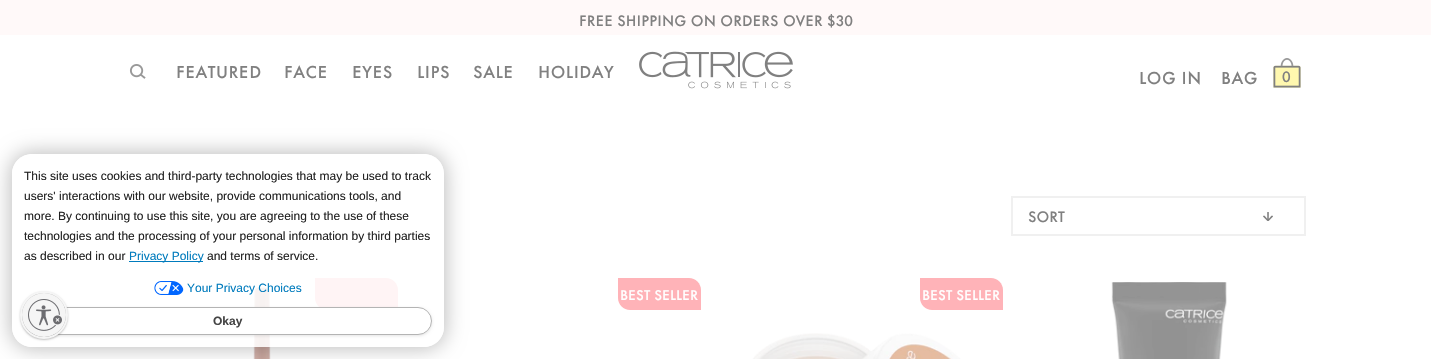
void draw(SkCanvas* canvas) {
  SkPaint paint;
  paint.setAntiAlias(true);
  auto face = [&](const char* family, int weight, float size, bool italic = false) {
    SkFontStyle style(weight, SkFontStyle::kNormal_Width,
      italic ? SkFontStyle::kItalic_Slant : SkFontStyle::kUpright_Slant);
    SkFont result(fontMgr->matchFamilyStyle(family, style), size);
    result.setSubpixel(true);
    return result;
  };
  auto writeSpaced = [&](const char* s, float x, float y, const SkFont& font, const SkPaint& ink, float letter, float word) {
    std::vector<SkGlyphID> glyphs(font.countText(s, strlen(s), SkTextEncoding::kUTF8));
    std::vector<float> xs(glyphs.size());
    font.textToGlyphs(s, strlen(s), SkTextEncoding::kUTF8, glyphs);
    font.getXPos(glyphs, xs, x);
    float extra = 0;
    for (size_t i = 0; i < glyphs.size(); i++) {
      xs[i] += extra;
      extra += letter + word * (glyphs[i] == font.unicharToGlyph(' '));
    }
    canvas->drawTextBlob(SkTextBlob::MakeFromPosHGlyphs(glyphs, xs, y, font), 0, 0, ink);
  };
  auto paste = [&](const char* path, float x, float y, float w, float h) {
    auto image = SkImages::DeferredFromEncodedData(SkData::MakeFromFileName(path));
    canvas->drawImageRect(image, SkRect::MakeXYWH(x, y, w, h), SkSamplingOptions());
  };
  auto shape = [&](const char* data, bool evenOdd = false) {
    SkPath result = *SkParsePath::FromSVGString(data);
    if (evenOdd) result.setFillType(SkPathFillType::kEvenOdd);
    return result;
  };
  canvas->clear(0xffffffff);
  paint.setColor(0xfffff9f9);
  canvas->drawRect(SkRect::MakeXYWH(0, 0, 1431, 35), paint);
  paste("img/1.png", 129, 64, 17, 15);
  paste("img/2.png", 639, 51, 154, 38);
  paste("img/3.png", 1273, 58, 28, 30);
  paste("img/4.png", 1263, 212, 10, 9);
  paint.setStroke(true);
  paint.setStrokeWidth(2);
  paint.setColor(0xfff0f0f0);
  canvas->drawRect(SkRect::MakeXYWH(1012, 197, 293, 38), paint);
  paste("img/5.png", 253, 286, 18, 73);
  paint.setStroke(false);
  paint.setColor(0xffffb3b8);
  canvas->drawPath(shape("M315 278H386C392.5 278 398 283.5 398 290V310H327C320.5 310 315 304.5 315 298Z"), paint);
  canvas->drawPath(shape("M618 278H689C695.5 278 701 283.5 701 290V310H630C623.5 310 618 304.5 618 298Z"), paint);
  canvas->drawPath(shape("M920 278H991C997.5 278 1003 283.5 1003 290V310H932C925.5 310 920 304.5 920 298Z"), paint);
  paste("img/6.png", 752, 333, 209, 26);
  paste("img/7.png", 1111, 282, 116, 77);
  canvas->save();
  canvas->clipPath(shape("M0 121H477V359H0ZM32 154H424C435 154 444 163 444 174V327C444 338 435 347 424 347H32C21 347 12 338 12 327V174C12 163 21 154 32 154Z", true), true);
  paint.setColor(0x40000000);
  paint.setMaskFilter(SkMaskFilter::MakeBlur(kNormal_SkBlurStyle, 10));
  canvas->drawRoundRect(SkRect::MakeXYWH(10, 152, 436, 197), 22, 22, paint);
  paint.setMaskFilter(nullptr);
  canvas->restore();
  paint.setColor(0xd9ffffff);
  canvas->drawRoundRect(SkRect::MakeXYWH(12, 154, 432, 193), 20, 20, paint);
  paint.setColor(0x1a000000);
  paint.setMaskFilter(SkMaskFilter::MakeBlur(kNormal_SkBlurStyle, 1.5f));
  canvas->drawRoundRect(SkRect::MakeXYWH(24, 308, 408, 28), 14, 14, paint);
  paint.setMaskFilter(nullptr);
  paint.setColor(0xffffffff);
  canvas->drawRoundRect(SkRect::MakeXYWH(24.5f, 307.5f, 407, 27), 13.5f, 13.5f, paint);
  paint.setStroke(true);
  paint.setStrokeWidth(1);
  paint.setColor(0xffb4b4b4);
  canvas->drawRoundRect(SkRect::MakeXYWH(24.5f, 307.5f, 407, 27), 13.5f, 13.5f, paint);
  paint.setStroke(false);
  paint.setColor(0x3d000000);
  paint.setMaskFilter(SkMaskFilter::MakeBlur(kNormal_SkBlurStyle, 1));
  canvas->drawRoundRect(SkRect::MakeXYWH(20, 292, 48, 48), 24, 24, paint);
  paint.setMaskFilter(nullptr);
  paint.setStroke(true);
  paint.setStrokeWidth(2);
  paint.setColor(0xfff5f5f5);
  canvas->drawCircle(44, 315, 23, paint);
  canvas->save();
  canvas->clipPath(shape("M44 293C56 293 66 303 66 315C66 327 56 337 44 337C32 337 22 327 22 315C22 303 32 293 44 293Z"), true);
  paint.setStroke(false);
  paint.setColor(0x3d000000);
  paint.setMaskFilter(SkMaskFilter::MakeBlur(kNormal_SkBlurStyle, 1));
  canvas->drawRoundRect(SkRect::MakeXYWH(22, 294, 44, 44), 22, 22, paint);
  paint.setMaskFilter(nullptr);
  canvas->restore();
  paint.setColor(0xfff5f5f5);
  canvas->drawCircle(44, 315, 22, paint);
  paste("img/8.png", 28, 299, 34, 32);
  paint.setColor(0xff007bbd);
  canvas->drawRect(SkRect::MakeXYWH(129, 261, 74, 1), paint);
  paste("img/9.png", 154, 281, 30, 14);
  auto f0 = face("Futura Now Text", 500, 14);
  paint.setColor(0xff808080);
  writeSpaced("FREE SHIPPING ON ORDERS OVER $30", 579, 26, f0, paint, 0.1f, 0);
  auto f1 = face("Futura Now Text", 500, 16);
  {
    const struct { const char* s; float x, y; } items[] = {
      {"FEATURED", 176, 78},
      {"FACE", 284, 78},
      {"EYES", 352, 78},
      {"LIPS", 417, 78},
      {"SALE", 473, 78},
      {"HOLIDAY", 538, 78},
      {"LOG IN", 1139, 84},
      {"BAG", 1221, 84},
    };
    for (auto [s, x, y] : items) {
      writeSpaced(s, x, y, f1, paint, 0.5f, 0);
    }
  }
  writeSpaced("0", 1282, 82, f0, paint, 0.5f, 0);
  canvas->drawString("SORT", 1028, 222, f0, paint);
  auto f2 = face("Futura Now Text", 500, 13);
  paint.setColor(0xffffffff);
  canvas->drawString("BEST SELLER", 620, 300, f2, paint);
  canvas->drawString("BEST SELLER", 922, 300, f2, paint);
  auto f3 = face("Liberation Sans", 400, 12);
  paint.setColor(0xff212121);
  {
    const struct { const char* s; float x, y; } items[] = {
      {"This site uses cookies and third-party technologies that may be used to track", 24, 180},
      {"users' interactions with our website, provide communications tools, and", 24, 200},
      {"more. By continuing to use this site, you are agreeing to the use of these", 24, 220},
      {"technologies and the processing of your personal information by third parties", 24, 240},
      {"as described in our", 24, 260},
    };
    for (auto [s, x, y] : items) {
      canvas->drawString(s, x, y, f3, paint);
    }
  }
  paint.setColor(0xff007bbd);
  canvas->drawString("Privacy Policy", 129, 260, f3, paint);
  paint.setColor(0xff212121);
  canvas->drawString("and terms of service.", 207, 260, f3, paint);
  paint.setColor(0xff007bbd);
  canvas->drawString("Your Privacy Choices", 187, 292, f3, paint);
  auto f4 = face("Liberation Sans", 700, 12);
  paint.setColor(0xff444444);
  canvas->drawString("Okay", 213, 325, f4, paint);
}
